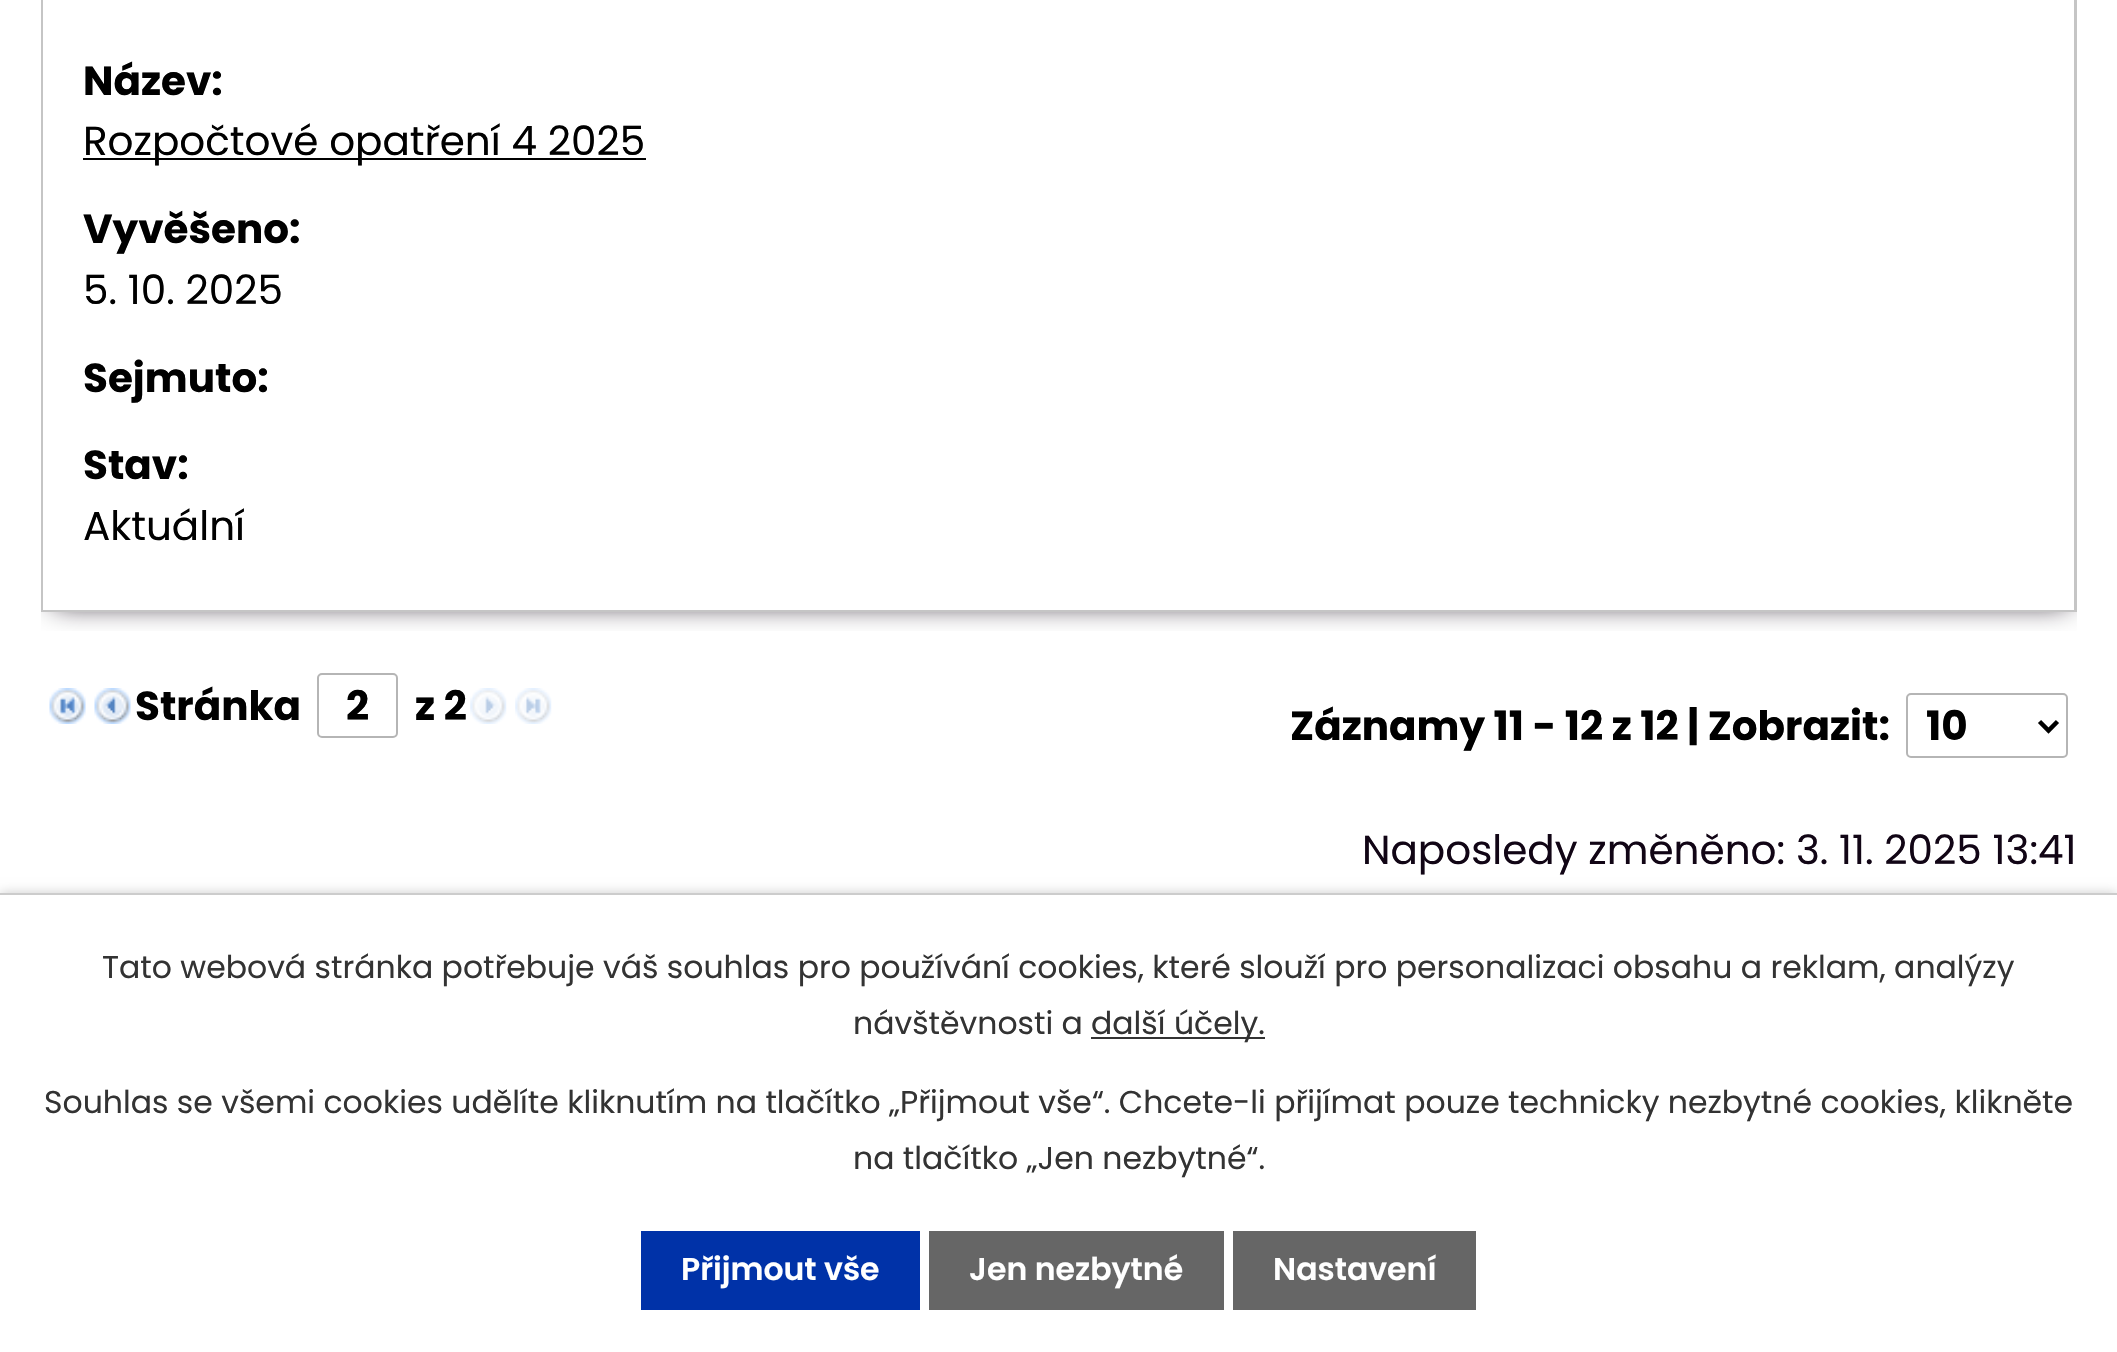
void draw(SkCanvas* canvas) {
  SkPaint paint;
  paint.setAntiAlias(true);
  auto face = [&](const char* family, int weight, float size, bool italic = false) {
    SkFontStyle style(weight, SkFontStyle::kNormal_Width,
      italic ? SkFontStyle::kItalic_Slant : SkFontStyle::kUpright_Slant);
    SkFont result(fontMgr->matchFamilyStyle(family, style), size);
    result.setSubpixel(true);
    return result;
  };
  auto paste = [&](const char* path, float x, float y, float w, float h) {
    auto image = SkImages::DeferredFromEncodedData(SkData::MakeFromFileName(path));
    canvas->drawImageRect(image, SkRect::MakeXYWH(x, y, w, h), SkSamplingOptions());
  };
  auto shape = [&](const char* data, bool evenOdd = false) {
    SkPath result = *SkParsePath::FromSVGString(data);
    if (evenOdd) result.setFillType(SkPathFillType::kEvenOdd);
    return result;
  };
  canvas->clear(0xffffffff);
  canvas->save();
  canvas->clipRect(SkRect::MakeXYWH(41, 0, 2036, 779));
  canvas->clipRect(SkRect::MakeXYWH(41, 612, 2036, 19));
  paint.setColor(0xff110515);
  paint.setMaskFilter(SkMaskFilter::MakeBlur(kNormal_SkBlurStyle, 13.5f));
  canvas->drawRect(SkRect::MakeXYWH(54, -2, 2014, 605), paint);
  paint.setMaskFilter(nullptr);
  canvas->restore();
  paint.setColor(0xffc5c5c5);
  canvas->drawPath(shape("M2077-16V612L2074 610V-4Z"), paint);
  canvas->drawRect(SkRect::MakeXYWH(41, 610, 2036, 2), paint);
  canvas->save();
  canvas->clipRect(SkRect::MakeXYWH(41, 0, 2036, 779));
  canvas->drawPath(shape("M40 612V-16L43-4V610Z"), paint);
  canvas->restore();
  paint.setColor(0xff000000);
  canvas->drawRect(SkRect::MakeXYWH(83, 158, 563, 2), paint);
  paste("img/1.png", 49, 688, 37, 36);
  paste("img/2.png", 94, 688, 37, 36);
  paint.setStroke(true);
  paint.setStrokeWidth(2);
  paint.setColor(0xffb5b5b5);
  canvas->drawRoundRect(SkRect::MakeXYWH(318, 674, 79, 63), 4, 4, paint);
  paste("img/3.png", 470, 688, 37, 36);
  paste("img/4.png", 515, 688, 37, 36);
  canvas->drawRoundRect(SkRect::MakeXYWH(1907, 694, 160, 63), 4, 4, paint);
  paint.setStrokeWidth(4.5f);
  paint.setColor(0xff000000);
  canvas->drawPath(shape("M2039.5 721.5L2048.5 730.5L2057.5 721.5"), paint);
  paint.setStroke(false);
  paint.setColor(0x33000000);
  paint.setMaskFilter(SkMaskFilter::MakeBlur(kNormal_SkBlurStyle, 5.5f));
  canvas->drawRect(SkRect::MakeXYWH(0, 893, 2117, 459), paint);
  paint.setMaskFilter(nullptr);
  {
    const struct { float x, y, w, h; SkColor color; } items[] = {
      {0, 895, 2117, 457, 0xffffffff},
      {0, 893, 2117, 2, 0xffcccccc},
      {1091, 1037, 174, 2, 0xff333333},
      {641, 1231, 279, 79, 0xff0032a8},
      {929, 1231, 295, 79, 0xff666666},
      {1233, 1231, 243, 79, 0xff666666},
    };
    for (auto [x, y, w, h, color] : items) {
      paint.setColor(color);
      canvas->drawRect(SkRect::MakeXYWH(x, y, w, h), paint);
    }
  }
  auto f0 = face("Poppins", 700, 40.5f);
  paint.setColor(0xff000000);
  canvas->drawString("Název:", 83, 95, f0, paint);
  auto f1 = face("Poppins", 400, 40.5f);
  canvas->drawString("Rozpočtové opatření 4 2025", 83, 155, f1, paint);
  canvas->drawString("Vyvěšeno:", 83, 243, f0, paint);
  canvas->drawString("5. 10. 2025", 83, 304, f1, paint);
  canvas->drawString("Sejmuto:", 83, 392, f0, paint);
  canvas->drawString("Stav:", 83, 479, f0, paint);
  canvas->drawString("Aktuální", 83, 540, f1, paint);
  {
    const struct { const char* s; float x, y; } items[] = {
      {"Stránka", 135, 720},
      {"2", 346, 720},
      {"z 2", 415, 720},
      {"Záznamy 11 - 12 z 12 | Zobrazit:", 1290, 740},
      {"10", 1926, 740},
    };
    for (auto [s, x, y] : items) {
      canvas->drawString(s, x, y, f0, paint);
    }
  }
  paint.setColor(0xff110515);
  canvas->drawString("Naposledy změněno: 3. 11. 2025 13:41", 1362, 864, f1, paint);
  auto f2 = face("Poppins", 400, 31.5f);
  paint.setColor(0xff333333);
  {
    const struct { const char* s; float x, y; } items[] = {
      {"Tato webová stránka potřebuje váš souhlas pro používání cookies, které slouží pro personalizaci obsahu a reklam, analýzy", 102, 978},
      {"návštěvnosti a", 853, 1034},
      {"další účely.", 1091, 1034},
      {"Souhlas se všemi cookies udělíte kliknutím na tlačítko „Přijmout vše“. Chcete-li přijímat pouze technicky nezbytné cookies, klikněte", 44, 1113},
      {"na tlačítko „Jen nezbytné“.", 853, 1169},
    };
    for (auto [s, x, y] : items) {
      canvas->drawString(s, x, y, f2, paint);
    }
  }
  auto f3 = face("Poppins", 600, 31.5f);
  paint.setColor(0xffffffff);
  {
    const struct { const char* s; float x, y; } items[] = {
      {"Přijmout vše", 681, 1280},
      {"Jen nezbytné", 969, 1280},
      {"Nastavení", 1273, 1280},
    };
    for (auto [s, x, y] : items) {
      canvas->drawString(s, x, y, f3, paint);
    }
  }
}
